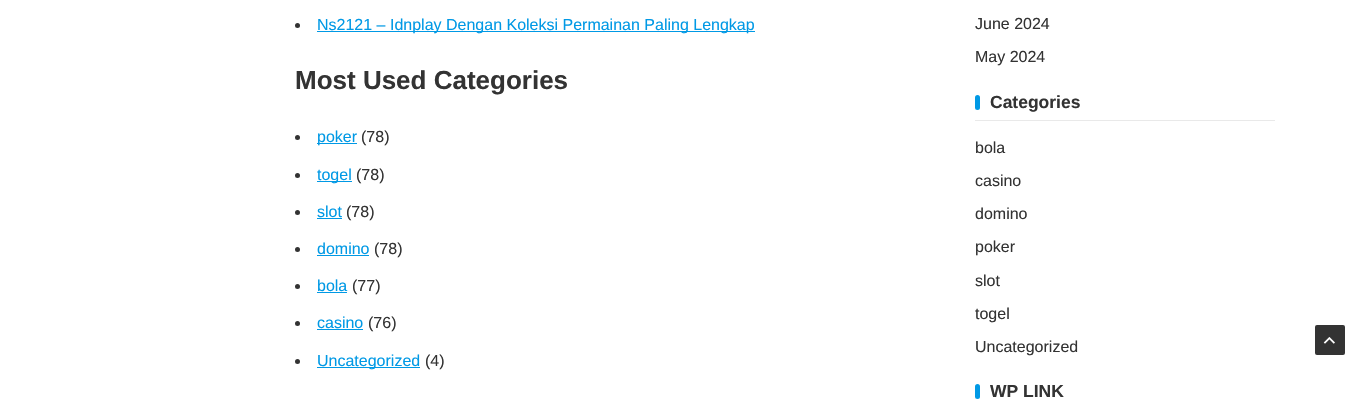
void draw(SkCanvas* canvas) {
  SkPaint paint;
  paint.setAntiAlias(true);
  auto face = [&](const char* family, int weight, float size, bool italic = false) {
    SkFontStyle style(weight, SkFontStyle::kNormal_Width,
      italic ? SkFontStyle::kItalic_Slant : SkFontStyle::kUpright_Slant);
    SkFont result(fontMgr->matchFamilyStyle(family, style), size);
    result.setSubpixel(true);
    return result;
  };
  auto paste = [&](const char* path, float x, float y, float w, float h) {
    auto image = SkImages::DeferredFromEncodedData(SkData::MakeFromFileName(path));
    canvas->drawImageRect(image, SkRect::MakeXYWH(x, y, w, h), SkSamplingOptions());
  };
  canvas->clear(0xffffffff);
  paint.setColor(0xff333333);
  canvas->drawCircle(297.5f, 25.5f, 2.5f, paint);
  paint.setColor(0xff0099e5);
  canvas->drawRect(SkRect::MakeXYWH(317, 31, 438, 1), paint);
  paint.setColor(0xff333333);
  canvas->drawCircle(297.5f, 137.5f, 2.5f, paint);
  paint.setColor(0xff0099e5);
  canvas->drawRect(SkRect::MakeXYWH(317, 143, 40, 1), paint);
  paint.setColor(0xff333333);
  canvas->drawCircle(297.5f, 175.5f, 2.5f, paint);
  paint.setColor(0xff0099e5);
  canvas->drawRect(SkRect::MakeXYWH(317, 181, 35, 1), paint);
  paint.setColor(0xff333333);
  canvas->drawCircle(297.5f, 212.5f, 2.5f, paint);
  paint.setColor(0xff0099e5);
  canvas->drawRect(SkRect::MakeXYWH(317, 218, 25, 1), paint);
  paint.setColor(0xff333333);
  canvas->drawCircle(297.5f, 249.5f, 2.5f, paint);
  paint.setColor(0xff0099e5);
  canvas->drawRect(SkRect::MakeXYWH(317, 255, 52, 1), paint);
  paint.setColor(0xff333333);
  canvas->drawCircle(297.5f, 286.5f, 2.5f, paint);
  paint.setColor(0xff0099e5);
  canvas->drawRect(SkRect::MakeXYWH(317, 292, 30, 1), paint);
  paint.setColor(0xff333333);
  canvas->drawCircle(297.5f, 323.5f, 2.5f, paint);
  paint.setColor(0xff0099e5);
  canvas->drawRect(SkRect::MakeXYWH(317, 329, 46, 1), paint);
  paint.setColor(0xff333333);
  canvas->drawCircle(297.5f, 361.5f, 2.5f, paint);
  paint.setColor(0xff0099e5);
  canvas->drawRect(SkRect::MakeXYWH(317, 367, 103, 1), paint);
  paint.setColor(0xffe9e9e9);
  canvas->drawRect(SkRect::MakeXYWH(975, 120, 300, 1), paint);
  paint.setColor(0xff0099e5);
  canvas->drawRoundRect(SkRect::MakeXYWH(975, 95, 5, 15), 2.5f, 2.5f, paint);
  canvas->drawRoundRect(SkRect::MakeXYWH(975, 384, 5, 15), 2.5f, 2.5f, paint);
  paint.setColor(0xff333333);
  canvas->drawRoundRect(SkRect::MakeXYWH(1315, 325, 30, 30), 2, 2, paint);
  paste("img/1.png", 1323, 337, 12, 7);
  auto f0 = face("Liberation Sans", 400, 16);
  paint.setColor(0xff0099e5);
  canvas->drawString("Ns2121 – Idnplay Dengan Koleksi Permainan Paling Lengkap", 317, 30, f0, paint);
  auto f1 = face("Liberation Sans", 700, 26);
  paint.setColor(0xff333333);
  canvas->drawString("Most Used Categories", 295, 89, f1, paint);
  paint.setColor(0xff0099e5);
  canvas->drawString("poker", 317, 142, f0, paint);
  paint.setColor(0xff333333);
  canvas->drawString("(78)", 361, 142, f0, paint);
  paint.setColor(0xff0099e5);
  canvas->drawString("togel", 317, 180, f0, paint);
  paint.setColor(0xff333333);
  canvas->drawString("(78)", 356, 180, f0, paint);
  paint.setColor(0xff0099e5);
  canvas->drawString("slot", 317, 217, f0, paint);
  paint.setColor(0xff333333);
  canvas->drawString("(78)", 346, 217, f0, paint);
  paint.setColor(0xff0099e5);
  canvas->drawString("domino", 317, 254, f0, paint);
  paint.setColor(0xff333333);
  canvas->drawString("(78)", 374, 254, f0, paint);
  paint.setColor(0xff0099e5);
  canvas->drawString("bola", 317, 291, f0, paint);
  paint.setColor(0xff333333);
  canvas->drawString("(77)", 352, 291, f0, paint);
  paint.setColor(0xff0099e5);
  canvas->drawString("casino", 317, 328, f0, paint);
  paint.setColor(0xff333333);
  canvas->drawString("(76)", 368, 328, f0, paint);
  paint.setColor(0xff0099e5);
  canvas->drawString("Uncategorized", 317, 366, f0, paint);
  paint.setColor(0xff333333);
  {
    const struct { const char* s; float x, y; } items[] = {
      {"(4)", 425, 366},
      {"June 2024", 975, 29},
      {"May 2024", 975, 62},
    };
    for (auto [s, x, y] : items) {
      canvas->drawString(s, x, y, f0, paint);
    }
  }
  auto f2 = face("Liberation Sans", 700, 17.5f);
  canvas->drawString("Categories", 990, 108, f2, paint);
  {
    const struct { const char* s; float x, y; } items[] = {
      {"bola", 975, 153},
      {"casino", 975, 186},
      {"domino", 975, 219},
      {"poker", 975, 252},
      {"slot", 975, 286},
      {"togel", 975, 319},
      {"Uncategorized", 975, 352},
    };
    for (auto [s, x, y] : items) {
      canvas->drawString(s, x, y, f0, paint);
    }
  }
  canvas->drawString("WP LINK", 990, 397, f2, paint);
}
